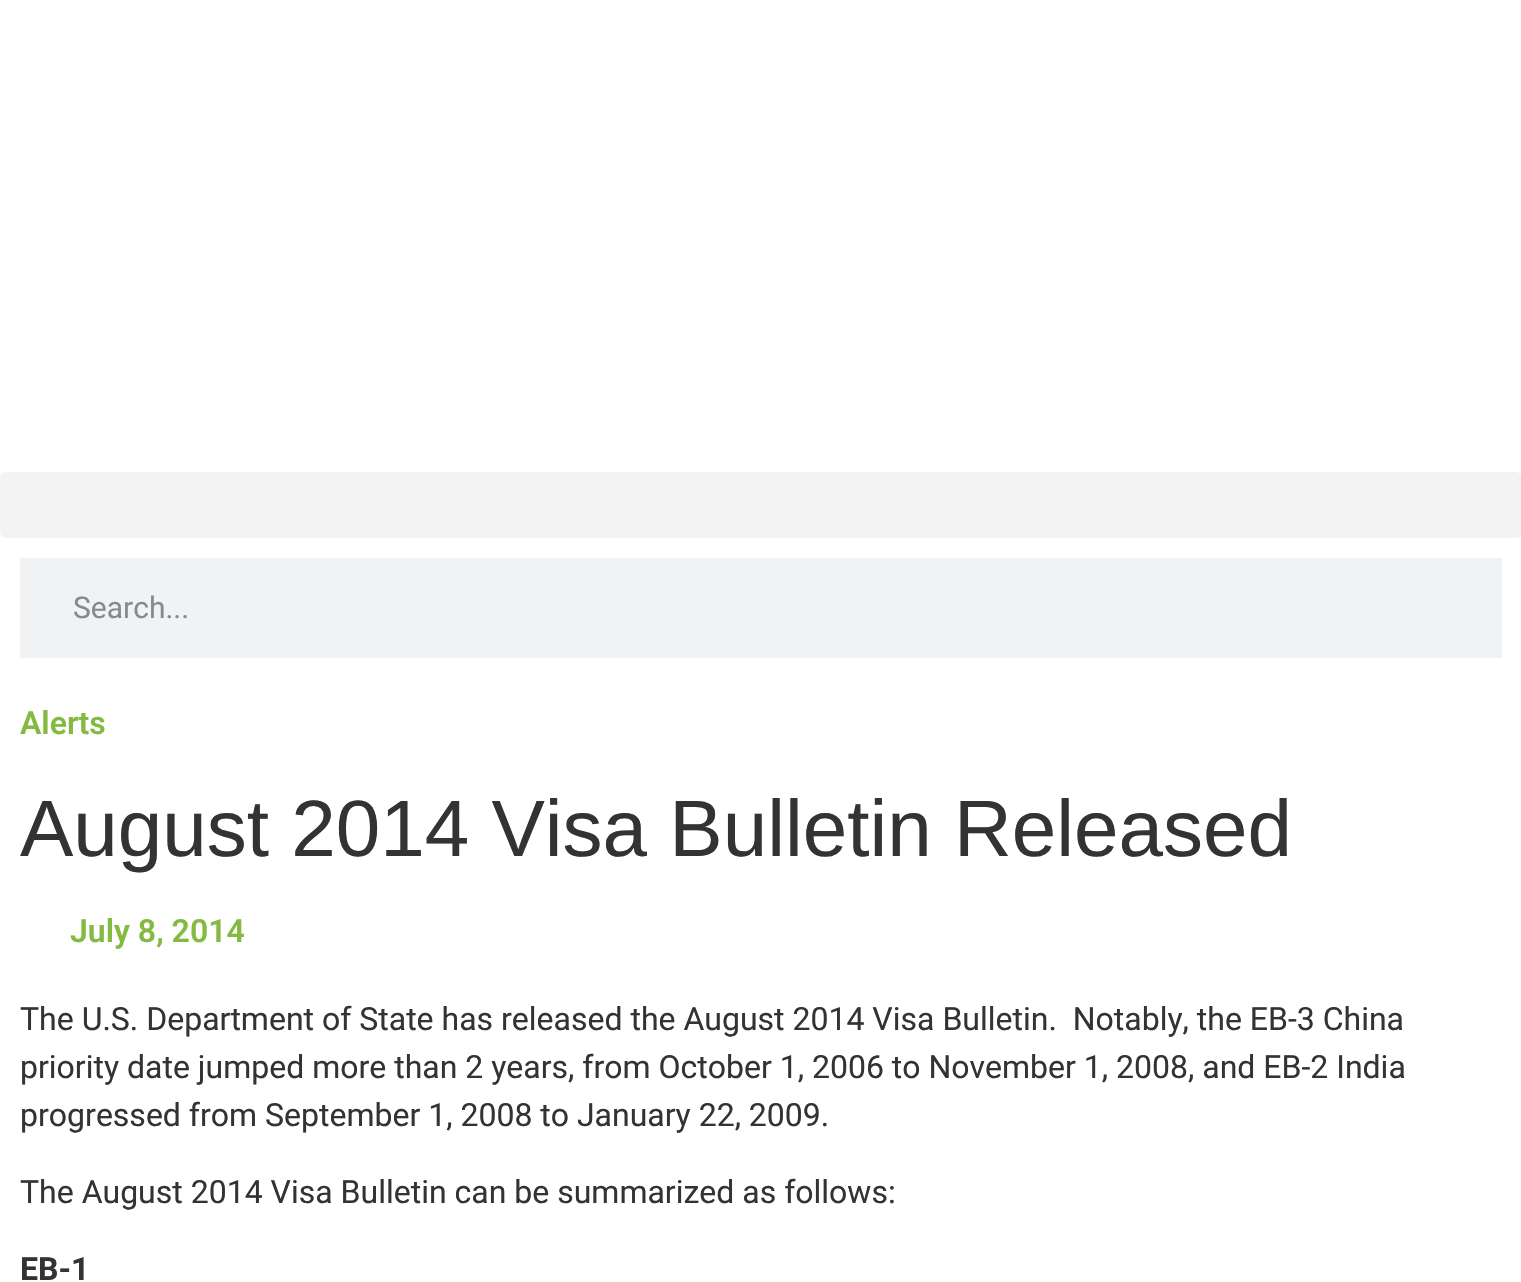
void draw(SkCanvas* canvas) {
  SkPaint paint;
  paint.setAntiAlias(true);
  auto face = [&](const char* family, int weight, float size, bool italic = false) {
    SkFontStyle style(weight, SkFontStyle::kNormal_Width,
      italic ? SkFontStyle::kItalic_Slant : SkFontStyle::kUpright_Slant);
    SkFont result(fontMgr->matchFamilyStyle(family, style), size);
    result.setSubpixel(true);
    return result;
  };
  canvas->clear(0xffffffff);
  paint.setColor(0xfff3f3f3);
  canvas->drawRoundRect(SkRect::MakeXYWH(0, 472, 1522, 66), 6, 6, paint);
  paint.setColor(0xfff1f2f3);
  canvas->drawRect(SkRect::MakeXYWH(20, 558, 1482, 100), paint);
  auto f0 = face("Roboto", 400, 30);
  paint.setColor(0xff868a8e);
  canvas->drawString("Search...", 73, 618, f0, paint);
  auto f1 = face("Roboto", 600, 32);
  paint.setColor(0xff85ba42);
  canvas->drawString("Alerts", 20, 734, f1, paint);
  auto f2 = face("Liberation Sans", 400, 80);
  paint.setColor(0xff333333);
  canvas->drawString("August 2014 Visa Bulletin Released", 20, 856, f2, paint);
  paint.setColor(0xff85ba42);
  canvas->drawString("July 8, 2014", 70, 942, f1, paint);
  auto f3 = face("Roboto", 400, 32);
  paint.setColor(0xff333333);
  {
    const struct { const char* s; float x, y; } items[] = {
      {"The U.S. Department of State has released the August 2014 Visa Bulletin.  Notably, the EB-3 China", 20, 1030},
      {"priority date jumped more than 2 years, from October 1, 2006 to November 1, 2008, and EB-2 India", 20, 1078},
      {"progressed from September 1, 2008 to January 22, 2009.", 20, 1126},
      {"The August 2014 Visa Bulletin can be summarized as follows:", 20, 1203},
    };
    for (auto [s, x, y] : items) {
      canvas->drawString(s, x, y, f3, paint);
    }
  }
  auto f4 = face("Roboto", 700, 32);
  canvas->drawString("EB-1", 20, 1280, f4, paint);
}
